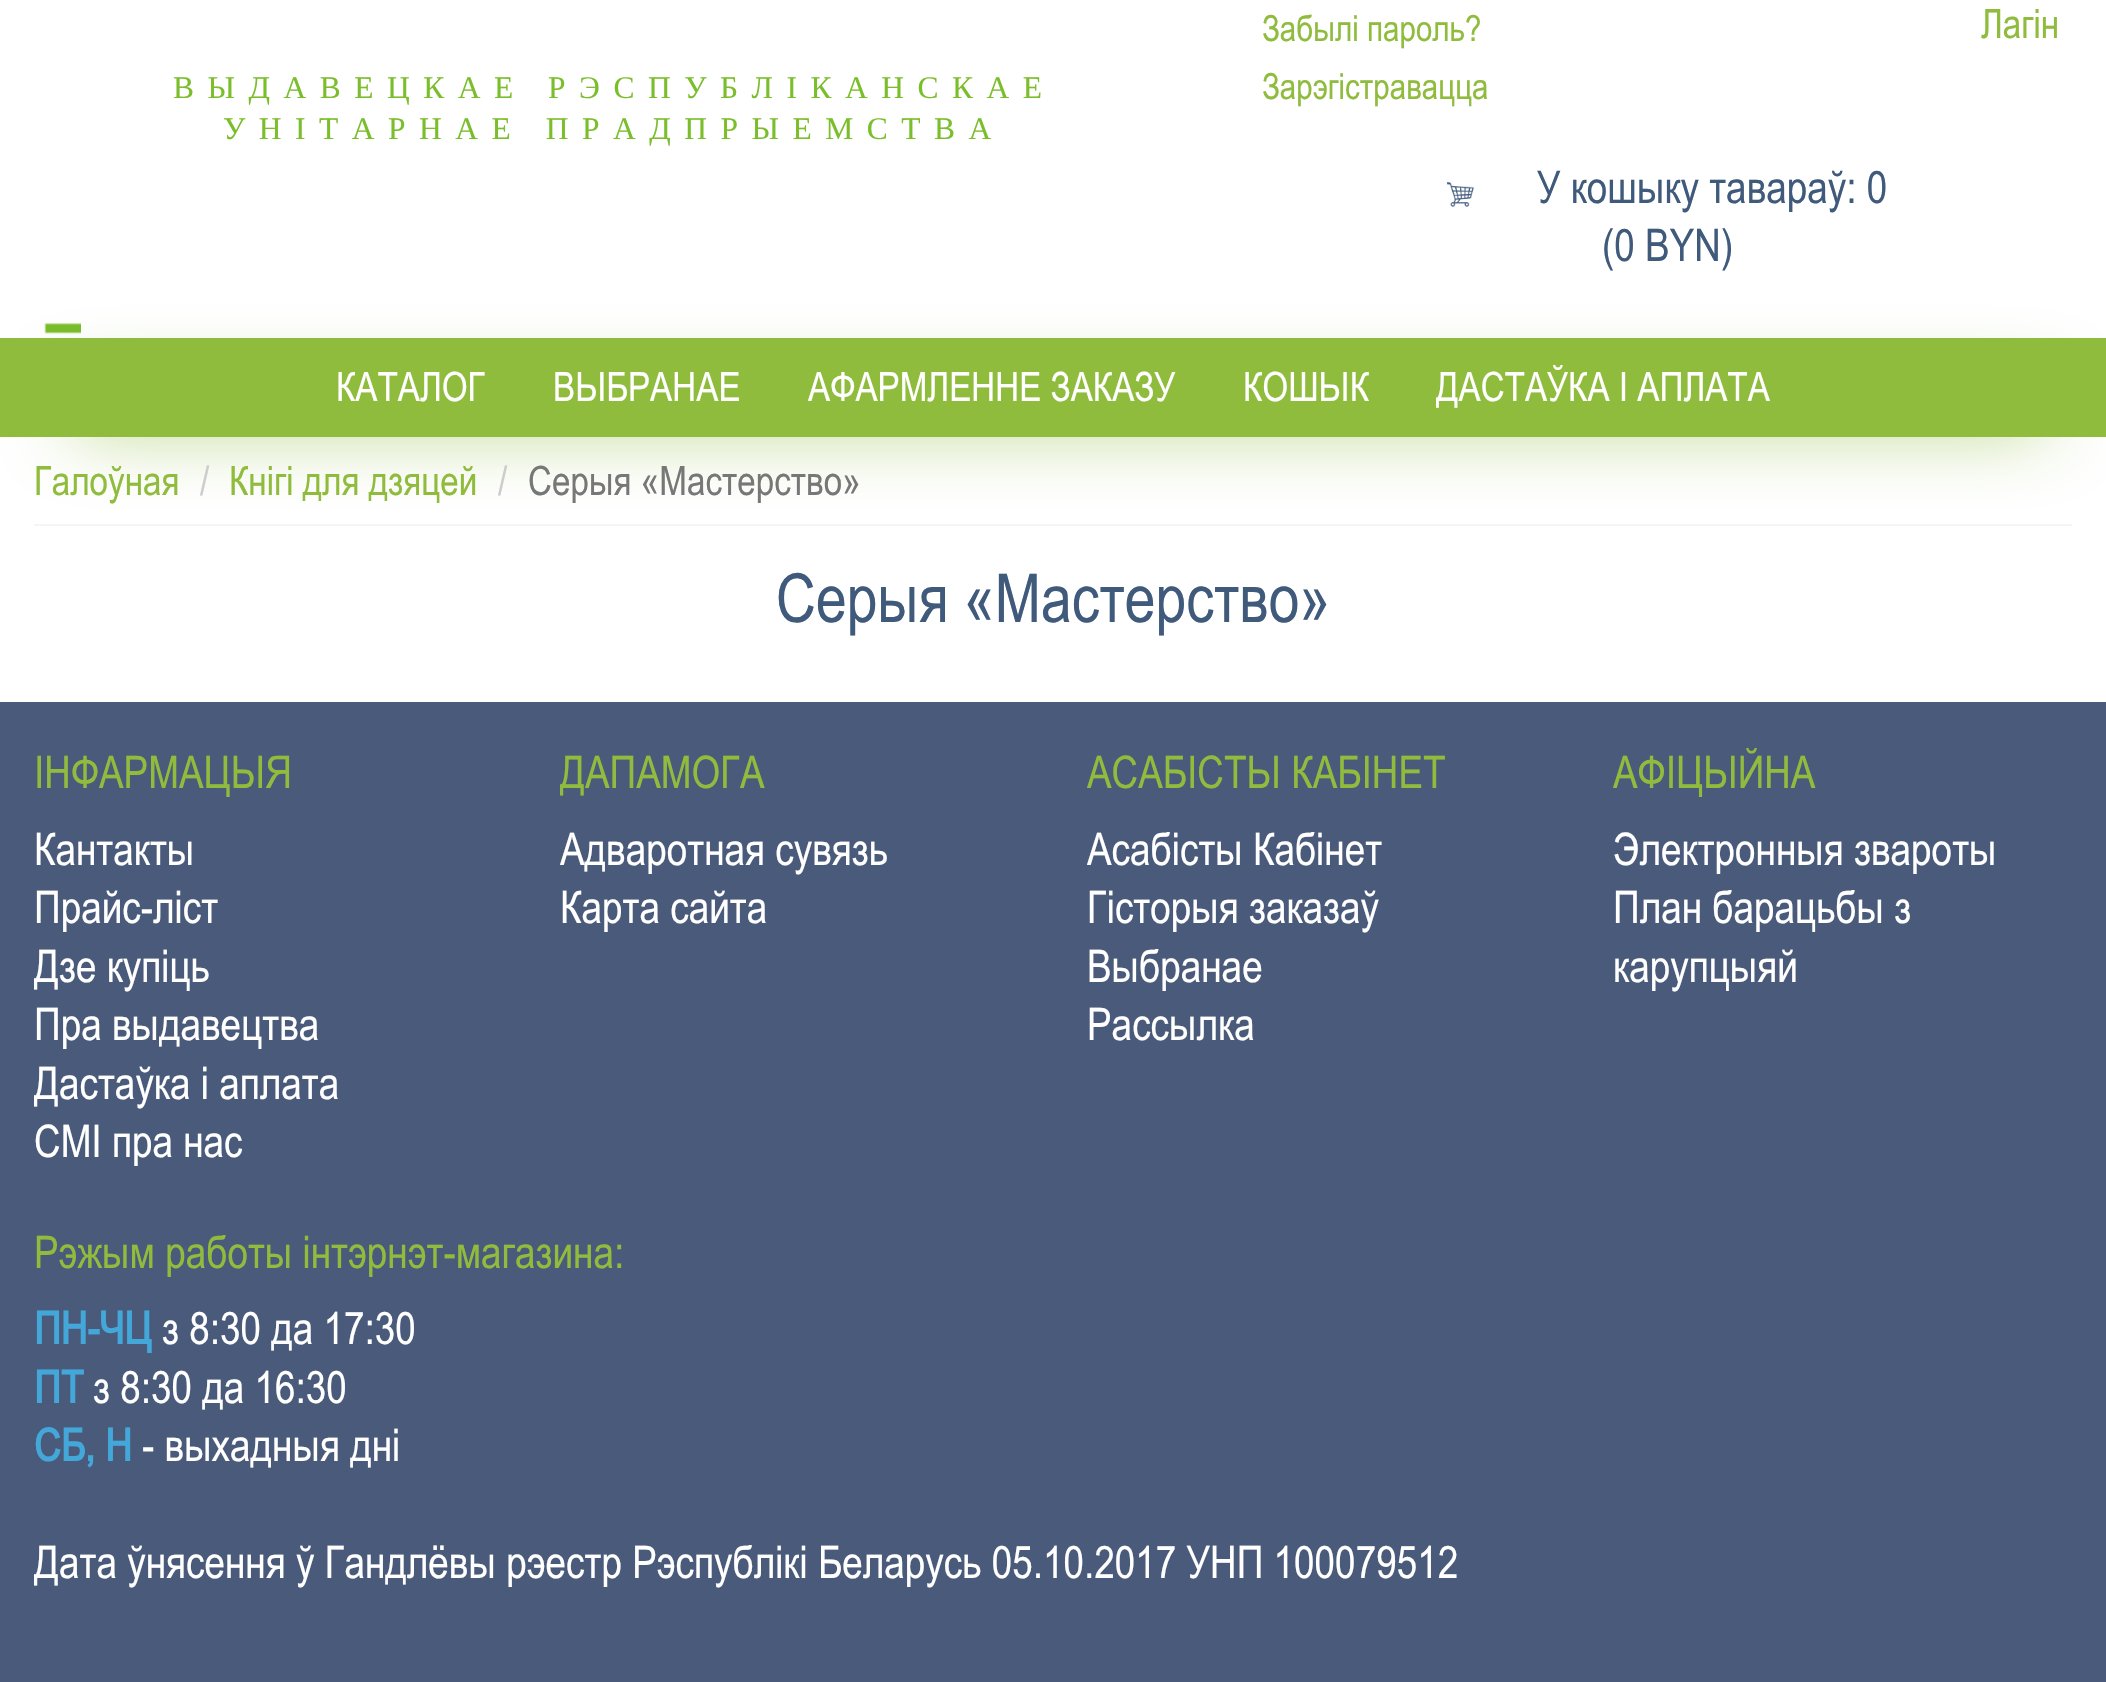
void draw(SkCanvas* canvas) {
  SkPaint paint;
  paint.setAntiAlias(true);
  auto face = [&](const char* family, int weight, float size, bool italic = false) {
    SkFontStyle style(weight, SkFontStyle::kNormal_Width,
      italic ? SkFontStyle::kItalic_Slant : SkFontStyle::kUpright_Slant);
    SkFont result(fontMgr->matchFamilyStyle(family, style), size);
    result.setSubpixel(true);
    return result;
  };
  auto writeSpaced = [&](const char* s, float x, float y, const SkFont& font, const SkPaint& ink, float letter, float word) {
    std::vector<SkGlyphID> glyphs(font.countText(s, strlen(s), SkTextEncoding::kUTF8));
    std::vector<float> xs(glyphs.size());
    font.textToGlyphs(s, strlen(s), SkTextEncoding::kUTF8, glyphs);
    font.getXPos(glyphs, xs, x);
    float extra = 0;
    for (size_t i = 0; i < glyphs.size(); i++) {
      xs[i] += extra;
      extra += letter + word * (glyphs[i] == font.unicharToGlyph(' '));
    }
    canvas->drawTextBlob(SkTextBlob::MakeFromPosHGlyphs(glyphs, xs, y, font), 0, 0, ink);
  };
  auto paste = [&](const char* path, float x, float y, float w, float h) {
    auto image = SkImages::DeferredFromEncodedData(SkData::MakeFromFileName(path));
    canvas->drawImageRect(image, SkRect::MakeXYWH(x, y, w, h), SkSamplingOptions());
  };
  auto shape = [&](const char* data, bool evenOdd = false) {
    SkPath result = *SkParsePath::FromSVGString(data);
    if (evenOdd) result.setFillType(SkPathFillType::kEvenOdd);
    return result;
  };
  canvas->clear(0xffffffff);
  paste("img/1.png", 1447, 182, 27, 25);
  paste("img/2.png", 43, 323, 38, 11);
  paint.setColor(0xff90bc3e);
  canvas->drawRect(SkRect::MakeXYWH(0, 338, 2106, 99), paint);
  paint.setColor(0xfff5f5f5);
  canvas->drawRect(SkRect::MakeXYWH(34, 524, 2038, 2), paint);
  canvas->save();
  canvas->clipPath(shape("M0 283H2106V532H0ZM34 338H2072V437H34Z", true), true);
  paint.setColor(0xff90bc3e);
  paint.setMaskFilter(SkMaskFilter::MakeBlur(kNormal_SkBlurStyle, 36));
  canvas->drawRect(SkRect::MakeXYWH(74, 392, 1971, 31), paint);
  paint.setMaskFilter(nullptr);
  canvas->restore();
  paint.setColor(0xff4a5a7a);
  canvas->drawRect(SkRect::MakeXYWH(0, 702, 2106, 980), paint);
  auto f0 = face("Liberation Serif", 400, 31.5f);
  paint.setColor(0xff7abe2b);
  writeSpaced("ВЫДАВЕЦКАЕ РЭСПУБЛІКАНСКАЕ", 173, 98, f0, paint, 13.5f, 0);
  writeSpaced("УНІТАРНАЕ ПРАДПРЫЕМСТВА", 223, 139, f0, paint, 13.5f, 0);
  auto f1 = face("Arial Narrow", 400, 36);
  paint.setColor(0xff90bc3e);
  canvas->drawString("Забылі пароль?", 1262, 41, f1, paint);
  auto f2 = face("Arial Narrow", 400, 40.5f);
  canvas->drawString("Лагін", 1981, 38, f2, paint);
  canvas->drawString("Зарэгістравацца", 1262, 99, f1, paint);
  auto f3 = face("Arial Narrow", 400, 45);
  paint.setColor(0xff405a7c);
  canvas->drawString("У кошыку тавараў: 0", 1537, 203, f3, paint);
  canvas->drawString("(0 BYN)", 1602, 261, f3, paint);
  paint.setColor(0xffffffff);
  {
    const struct { const char* s; float x, y; } items[] = {
      {"КАТАЛОГ", 336, 401},
      {"ВЫБРАНАЕ", 553, 401},
      {"АФАРМЛЕННЕ ЗАКАЗУ", 808, 401},
      {"КОШЫК", 1243, 401},
      {"ДАСТАЎКА І АПЛАТА", 1436, 401},
    };
    for (auto [s, x, y] : items) {
      canvas->drawString(s, x, y, f2, paint);
    }
  }
  paint.setColor(0xff90bc3e);
  canvas->drawString("Галоўная", 34, 495, f2, paint);
  paint.setColor(0xffcccccc);
  canvas->drawString("/", 200, 495, f2, paint);
  paint.setColor(0xff90bc3e);
  canvas->drawString("Кнігі для дзяцей", 229, 495, f2, paint);
  paint.setColor(0xffcccccc);
  canvas->drawString("/", 498, 495, f2, paint);
  paint.setColor(0xff777777);
  canvas->drawString("Серыя «Мастерство»", 528, 495, f2, paint);
  auto f4 = face("Arial Narrow", 400, 67.5f);
  paint.setColor(0xff405a7c);
  canvas->drawString("Серыя «Мастерство»", 776, 622, f4, paint);
  paint.setColor(0xff90bc3e);
  canvas->drawString("ІНФАРМАЦЫЯ", 34, 788, f3, paint);
  paint.setColor(0xffffffff);
  {
    const struct { const char* s; float x, y; } items[] = {
      {"Кантакты", 34, 865},
      {"Прайс-ліст", 34, 923},
      {"Дзе купіць", 34, 982},
      {"Пра выдавецтва", 34, 1040},
      {"Дастаўка і аплата", 34, 1099},
      {"СМІ пра нас", 34, 1157},
    };
    for (auto [s, x, y] : items) {
      canvas->drawString(s, x, y, f3, paint);
    }
  }
  paint.setColor(0xff90bc3e);
  canvas->drawString("ДАПАМОГА", 560, 788, f3, paint);
  paint.setColor(0xffffffff);
  canvas->drawString("Адваротная сувязь", 560, 865, f3, paint);
  canvas->drawString("Карта сайта", 560, 923, f3, paint);
  paint.setColor(0xff90bc3e);
  canvas->drawString("АСАБІСТЫ КАБІНЕТ", 1087, 788, f3, paint);
  paint.setColor(0xffffffff);
  {
    const struct { const char* s; float x, y; } items[] = {
      {"Асабісты Кабінет", 1087, 865},
      {"Гісторыя заказаў", 1087, 923},
      {"Выбранае", 1087, 982},
      {"Рассылка", 1087, 1040},
    };
    for (auto [s, x, y] : items) {
      canvas->drawString(s, x, y, f3, paint);
    }
  }
  paint.setColor(0xff90bc3e);
  canvas->drawString("АФІЦЫЙНА", 1613, 788, f3, paint);
  paint.setColor(0xffffffff);
  {
    const struct { const char* s; float x, y; } items[] = {
      {"Электронныя звароты", 1613, 865},
      {"План барацьбы з", 1613, 923},
      {"карупцыяй", 1613, 982},
    };
    for (auto [s, x, y] : items) {
      canvas->drawString(s, x, y, f3, paint);
    }
  }
  paint.setColor(0xff90bc3e);
  canvas->drawString("Рэжым работы інтэрнэт-магазина:", 34, 1268, f3, paint);
  auto f5 = face("Arial Narrow", 700, 45);
  paint.setColor(0xff44a7da);
  canvas->drawString("ПН-ЧЦ", 34, 1344, f5, paint);
  paint.setColor(0xffffffff);
  canvas->drawString("з 8:30 да 17:30", 162, 1344, f3, paint);
  paint.setColor(0xff44a7da);
  canvas->drawString("ПТ", 34, 1403, f5, paint);
  paint.setColor(0xffffffff);
  canvas->drawString("з 8:30 да 16:30", 93, 1403, f3, paint);
  paint.setColor(0xff44a7da);
  canvas->drawString("СБ, Н", 34, 1461, f5, paint);
  paint.setColor(0xffffffff);
  canvas->drawString("- выхадныя дні", 142, 1461, f3, paint);
  canvas->drawString("Дата ўнясення ў Гандлёвы рэестр Рэспублікі Беларусь 05.10.2017 УНП 100079512", 34, 1578, f3, paint);
}
